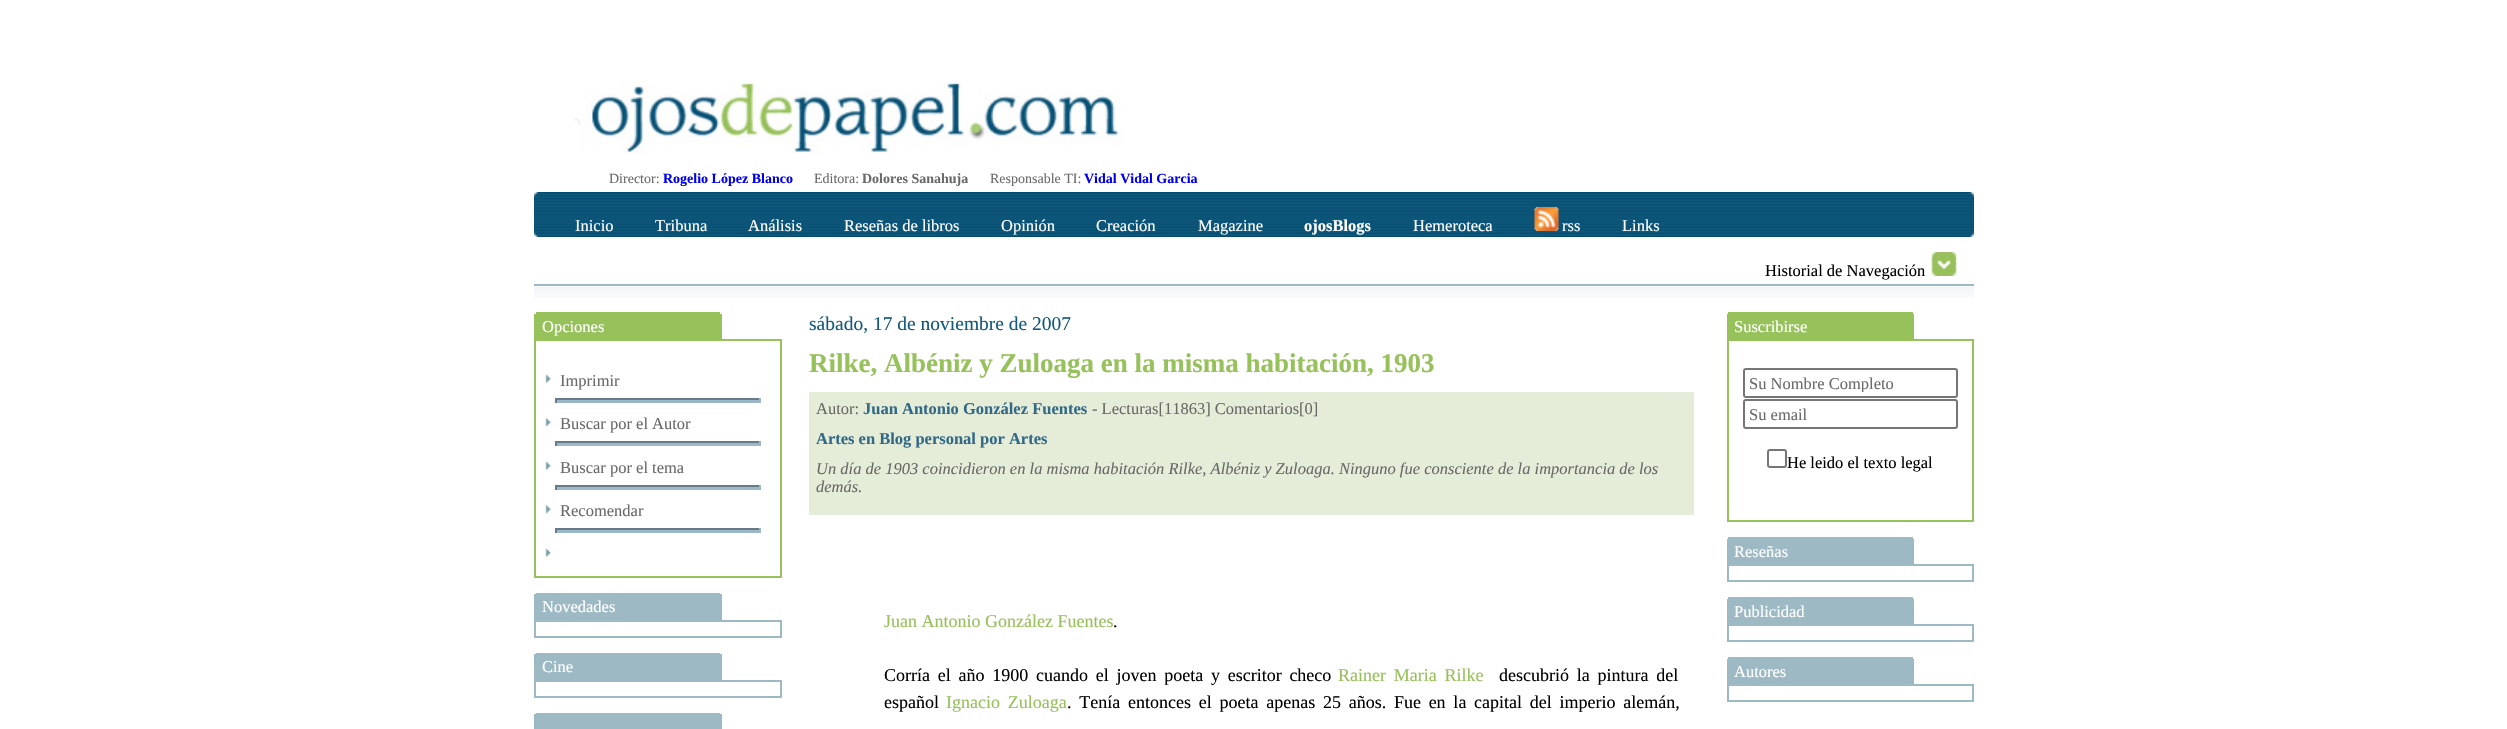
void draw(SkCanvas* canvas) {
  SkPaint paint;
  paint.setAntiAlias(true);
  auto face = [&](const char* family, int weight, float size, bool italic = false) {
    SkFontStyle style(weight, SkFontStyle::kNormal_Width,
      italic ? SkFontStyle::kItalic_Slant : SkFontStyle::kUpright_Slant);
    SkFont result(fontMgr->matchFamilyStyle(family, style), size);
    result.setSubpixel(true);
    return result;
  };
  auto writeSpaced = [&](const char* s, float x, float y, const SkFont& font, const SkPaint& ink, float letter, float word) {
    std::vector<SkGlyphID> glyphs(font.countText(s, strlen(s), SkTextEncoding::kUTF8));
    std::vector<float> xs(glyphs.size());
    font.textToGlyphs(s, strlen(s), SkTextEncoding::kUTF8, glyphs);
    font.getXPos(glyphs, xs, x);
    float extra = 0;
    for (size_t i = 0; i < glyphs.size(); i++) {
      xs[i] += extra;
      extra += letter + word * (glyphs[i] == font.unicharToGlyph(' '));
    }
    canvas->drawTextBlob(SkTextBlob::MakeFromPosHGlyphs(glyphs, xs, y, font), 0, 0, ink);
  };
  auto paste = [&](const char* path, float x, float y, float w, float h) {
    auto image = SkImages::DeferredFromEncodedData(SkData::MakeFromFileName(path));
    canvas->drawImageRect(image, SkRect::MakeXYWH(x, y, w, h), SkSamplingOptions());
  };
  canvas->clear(0xffffffff);
  paste("img/1.png", 574, 82, 548, 73);
  paint.setColor(0xff034d72);
  canvas->drawRect(SkRect::MakeXYWH(538, 192, 1432, 45), paint);
  paste("img/2.png", 538, 193, 1432, 43);
  paste("img/3.png", 534, 192, 5, 45);
  paste("img/4.png", 1534, 207, 25, 24);
  paste("img/5.png", 1969, 192, 5, 45);
  paste("img/6.png", 1929, 252, 29, 24);
  paste("img/7.png", 534, 286, 1440, 12);
  {
    const struct { float x, y, w, h; SkColor color; } items[] = {
      {534, 284, 1440, 2, 0xff9db9c4},
      {534, 314, 188, 25, 0xff97c15b},
      {536, 312, 184, 2, 0xff97c15b},
    };
    for (auto [x, y, w, h, color] : items) {
      paint.setColor(color);
      canvas->drawRect(SkRect::MakeXYWH(x, y, w, h), paint);
    }
  }
  paint.setStroke(true);
  paint.setStrokeWidth(2);
  canvas->drawRect(SkRect::MakeXYWH(535, 340, 246, 237), paint);
  paste("img/8.png", 545, 374, 6, 9);
  paint.setStroke(false);
  {
    const struct { float x, y, w, h; SkColor color; } items[] = {
      {555, 400, 206, 3, 0xff9cb7c8},
      {555, 398, 206, 2, 0xff687a85},
      {759, 398, 2, 5, 0xff9cb7c8},
      {555, 398, 2, 5, 0xff687a85},
    };
    for (auto [x, y, w, h, color] : items) {
      paint.setColor(color);
      canvas->drawRect(SkRect::MakeXYWH(x, y, w, h), paint);
    }
  }
  paste("img/9.png", 545, 418, 6, 9);
  {
    const struct { float x, y, w, h; SkColor color; } items[] = {
      {555, 443, 206, 3, 0xff9cb7c8},
      {555, 441, 206, 2, 0xff687a85},
      {759, 441, 2, 5, 0xff9cb7c8},
      {555, 441, 2, 5, 0xff687a85},
    };
    for (auto [x, y, w, h, color] : items) {
      paint.setColor(color);
      canvas->drawRect(SkRect::MakeXYWH(x, y, w, h), paint);
    }
  }
  paste("img/8.png", 545, 461, 6, 9);
  {
    const struct { float x, y, w, h; SkColor color; } items[] = {
      {555, 487, 206, 3, 0xff9cb7c8},
      {555, 485, 206, 2, 0xff687a85},
      {759, 485, 2, 5, 0xff9cb7c8},
      {555, 485, 2, 5, 0xff687a85},
    };
    for (auto [x, y, w, h, color] : items) {
      paint.setColor(color);
      canvas->drawRect(SkRect::MakeXYWH(x, y, w, h), paint);
    }
  }
  paste("img/9.png", 545, 505, 6, 9);
  {
    const struct { float x, y, w, h; SkColor color; } items[] = {
      {555, 530, 206, 3, 0xff9cb7c8},
      {555, 528, 206, 2, 0xff687a85},
      {759, 528, 2, 5, 0xff9cb7c8},
      {555, 528, 2, 5, 0xff687a85},
    };
    for (auto [x, y, w, h, color] : items) {
      paint.setColor(color);
      canvas->drawRect(SkRect::MakeXYWH(x, y, w, h), paint);
    }
  }
  paste("img/8.png", 545, 548, 6, 9);
  paint.setColor(0xff9db9c4);
  canvas->drawRect(SkRect::MakeXYWH(534, 594, 188, 26), paint);
  canvas->drawRect(SkRect::MakeXYWH(536, 593, 184, 1), paint);
  paint.setStroke(true);
  canvas->drawRect(SkRect::MakeXYWH(535, 621, 246, 16), paint);
  paint.setStroke(false);
  canvas->drawRect(SkRect::MakeXYWH(534, 654, 188, 26), paint);
  canvas->drawRect(SkRect::MakeXYWH(536, 653, 184, 1), paint);
  paint.setStroke(true);
  canvas->drawRect(SkRect::MakeXYWH(535, 681, 246, 16), paint);
  paint.setStroke(false);
  {
    const struct { float x, y, w, h; SkColor color; } items[] = {
      {534, 714, 188, 15, 0xff9db9c4},
      {536, 713, 184, 1, 0xff9db9c4},
      {809, 392, 885, 123, 0xffe5edd8},
      {1727, 314, 187, 25, 0xff97c15b},
      {1728, 312, 185, 2, 0xff97c15b},
    };
    for (auto [x, y, w, h, color] : items) {
      paint.setColor(color);
      canvas->drawRect(SkRect::MakeXYWH(x, y, w, h), paint);
    }
  }
  paint.setStroke(true);
  canvas->drawRect(SkRect::MakeXYWH(1728, 340, 245, 181), paint);
  paint.setColor(0xff767676);
  canvas->drawRoundRect(SkRect::MakeXYWH(1744, 369, 213, 28), 2, 2, paint);
  canvas->drawRoundRect(SkRect::MakeXYWH(1744, 400, 213, 28), 2, 2, paint);
  canvas->drawRoundRect(SkRect::MakeXYWH(1768, 450, 18, 17), 2, 2, paint);
  paint.setStroke(false);
  paint.setColor(0xff9db9c4);
  canvas->drawRect(SkRect::MakeXYWH(1727, 539, 187, 25), paint);
  canvas->drawRect(SkRect::MakeXYWH(1728, 537, 185, 2), paint);
  paint.setStroke(true);
  canvas->drawRect(SkRect::MakeXYWH(1728, 565, 245, 16), paint);
  paint.setStroke(false);
  canvas->drawRect(SkRect::MakeXYWH(1727, 599, 187, 25), paint);
  canvas->drawRect(SkRect::MakeXYWH(1728, 597, 185, 2), paint);
  paint.setStroke(true);
  canvas->drawRect(SkRect::MakeXYWH(1728, 625, 245, 16), paint);
  paint.setStroke(false);
  canvas->drawRect(SkRect::MakeXYWH(1727, 659, 187, 25), paint);
  canvas->drawRect(SkRect::MakeXYWH(1728, 657, 185, 2), paint);
  paint.setStroke(true);
  canvas->drawRect(SkRect::MakeXYWH(1728, 685, 245, 16), paint);
  auto f0 = face("Liberation Serif", 400, 14);
  paint.setStroke(false);
  paint.setColor(0xff696969);
  canvas->drawString("Director:", 609, 183, f0, paint);
  auto f1 = face("Liberation Serif", 700, 14);
  paint.setColor(0xff0000ee);
  canvas->drawString("Rogelio López Blanco", 663, 183, f1, paint);
  paint.setColor(0xff696969);
  canvas->drawString("Editora:", 814, 183, f0, paint);
  canvas->drawString("Dolores Sanahuja", 862, 183, f1, paint);
  canvas->drawString("Responsable TI:", 990, 183, f0, paint);
  paint.setColor(0xff0000ee);
  canvas->drawString("Vidal Vidal Garcia", 1084, 183, f1, paint);
  auto f2 = face("Liberation Serif", 400, 16.5f);
  paint.setColor(0xffffffff);
  {
    const struct { const char* s; float x, y; } items[] = {
      {"Inicio", 575, 231},
      {"Tribuna", 655, 231},
      {"Análisis", 748, 231},
      {"Reseñas de libros", 844, 231},
      {"Opinión", 1001, 231},
      {"Creación", 1096, 231},
      {"Magazine", 1198, 231},
    };
    for (auto [s, x, y] : items) {
      canvas->drawString(s, x, y, f2, paint);
    }
  }
  auto f3 = face("Liberation Serif", 700, 16.5f);
  canvas->drawString("ojosBlogs", 1304, 231, f3, paint);
  {
    const struct { const char* s; float x, y; } items[] = {
      {"Hemeroteca", 1413, 231},
      {"rss", 1562, 231},
      {"Links", 1622, 231},
    };
    for (auto [s, x, y] : items) {
      canvas->drawString(s, x, y, f2, paint);
    }
  }
  paint.setColor(0xff000000);
  canvas->drawString("Historial de Navegación", 1765, 276, f2, paint);
  paint.setColor(0xffffffff);
  canvas->drawString("Opciones", 542, 332, f2, paint);
  paint.setColor(0xff696969);
  {
    const struct { const char* s; float x, y; } items[] = {
      {"Imprimir", 560, 386},
      {"Buscar por el Autor", 560, 429},
      {"Buscar por el tema", 560, 473},
      {"Recomendar", 560, 516},
    };
    for (auto [s, x, y] : items) {
      canvas->drawString(s, x, y, f2, paint);
    }
  }
  paint.setColor(0xffffffff);
  canvas->drawString("Novedades", 542, 612, f2, paint);
  canvas->drawString("Cine", 542, 672, f2, paint);
  auto f4 = face("Liberation Serif", 400, 19.5f);
  paint.setColor(0xff115a7d);
  canvas->drawString("sábado, 17 de noviembre de 2007", 809, 330, f4, paint);
  auto f5 = face("Liberation Serif", 700, 27);
  paint.setColor(0xff97c15b);
  canvas->drawString("Rilke, Albéniz y Zuloaga en la misma habitación, 1903", 809, 372, f5, paint);
  paint.setColor(0xff696969);
  canvas->drawString("Autor:", 816, 414, f2, paint);
  paint.setColor(0xff326987);
  canvas->drawString("Juan Antonio González Fuentes", 863, 414, f3, paint);
  paint.setColor(0xff696969);
  canvas->drawString("- Lecturas[11863] Comentarios[0]", 1092, 414, f2, paint);
  paint.setColor(0xff326987);
  canvas->drawString("Artes en Blog personal por Artes", 816, 444, f3, paint);
  auto f6 = face("Liberation Serif", 400, 16.5f, true);
  paint.setColor(0xff696969);
  canvas->drawString("Un día de 1903 coincidieron en la misma habitación Rilke, Albéniz y Zuloaga. Ninguno fue consciente de la importancia de los", 816, 474, f6, paint);
  canvas->drawString("demás.", 816, 492, f6, paint);
  auto f7 = face("Liberation Serif", 400, 18);
  paint.setColor(0xff97c15b);
  canvas->drawString("Juan Antonio González Fuentes", 884, 627, f7, paint);
  paint.setColor(0xff000000);
  canvas->drawString(".", 1113, 627, f7, paint);
  writeSpaced("Corría el año 1900 cuando el joven poeta y escritor checo", 884, 681, f7, paint, 0, 3.25f);
  paint.setColor(0xff97c15b);
  writeSpaced("Rainer Maria Rilke", 1338, 681, f7, paint, 0, 3.25f);
  paint.setColor(0xff000000);
  writeSpaced("descubrió la pintura del", 1499, 681, f7, paint, 0, 3.25f);
  canvas->drawString("español", 884, 708, f7, paint);
  paint.setColor(0xff97c15b);
  writeSpaced("Ignacio Zuloaga", 946, 708, f7, paint, 0, 3.25f);
  paint.setColor(0xff000000);
  writeSpaced(". Tenía entonces el poeta apenas 25 años. Fue en la capital del imperio alemán,", 1067, 708, f7, paint, 0, 3.25f);
  paint.setColor(0xffffffff);
  canvas->drawString("Suscribirse", 1734, 332, f2, paint);
  canvas->save();
  canvas->clipRect(SkRect::MakeXYWH(1749, 374, 203, 18));
  paint.setColor(0xff696969);
  canvas->drawString("Su Nombre Completo", 1749, 389, f2, paint);
  canvas->restore();
  canvas->drawString("Su email", 1749, 420, f2, paint);
  paint.setColor(0xff000000);
  canvas->drawString("He leido el texto legal", 1787, 468, f2, paint);
  paint.setColor(0xffffffff);
  {
    const struct { const char* s; float x, y; } items[] = {
      {"Reseñas", 1734, 557},
      {"Publicidad", 1734, 617},
      {"Autores", 1734, 677},
    };
    for (auto [s, x, y] : items) {
      canvas->drawString(s, x, y, f2, paint);
    }
  }
}
